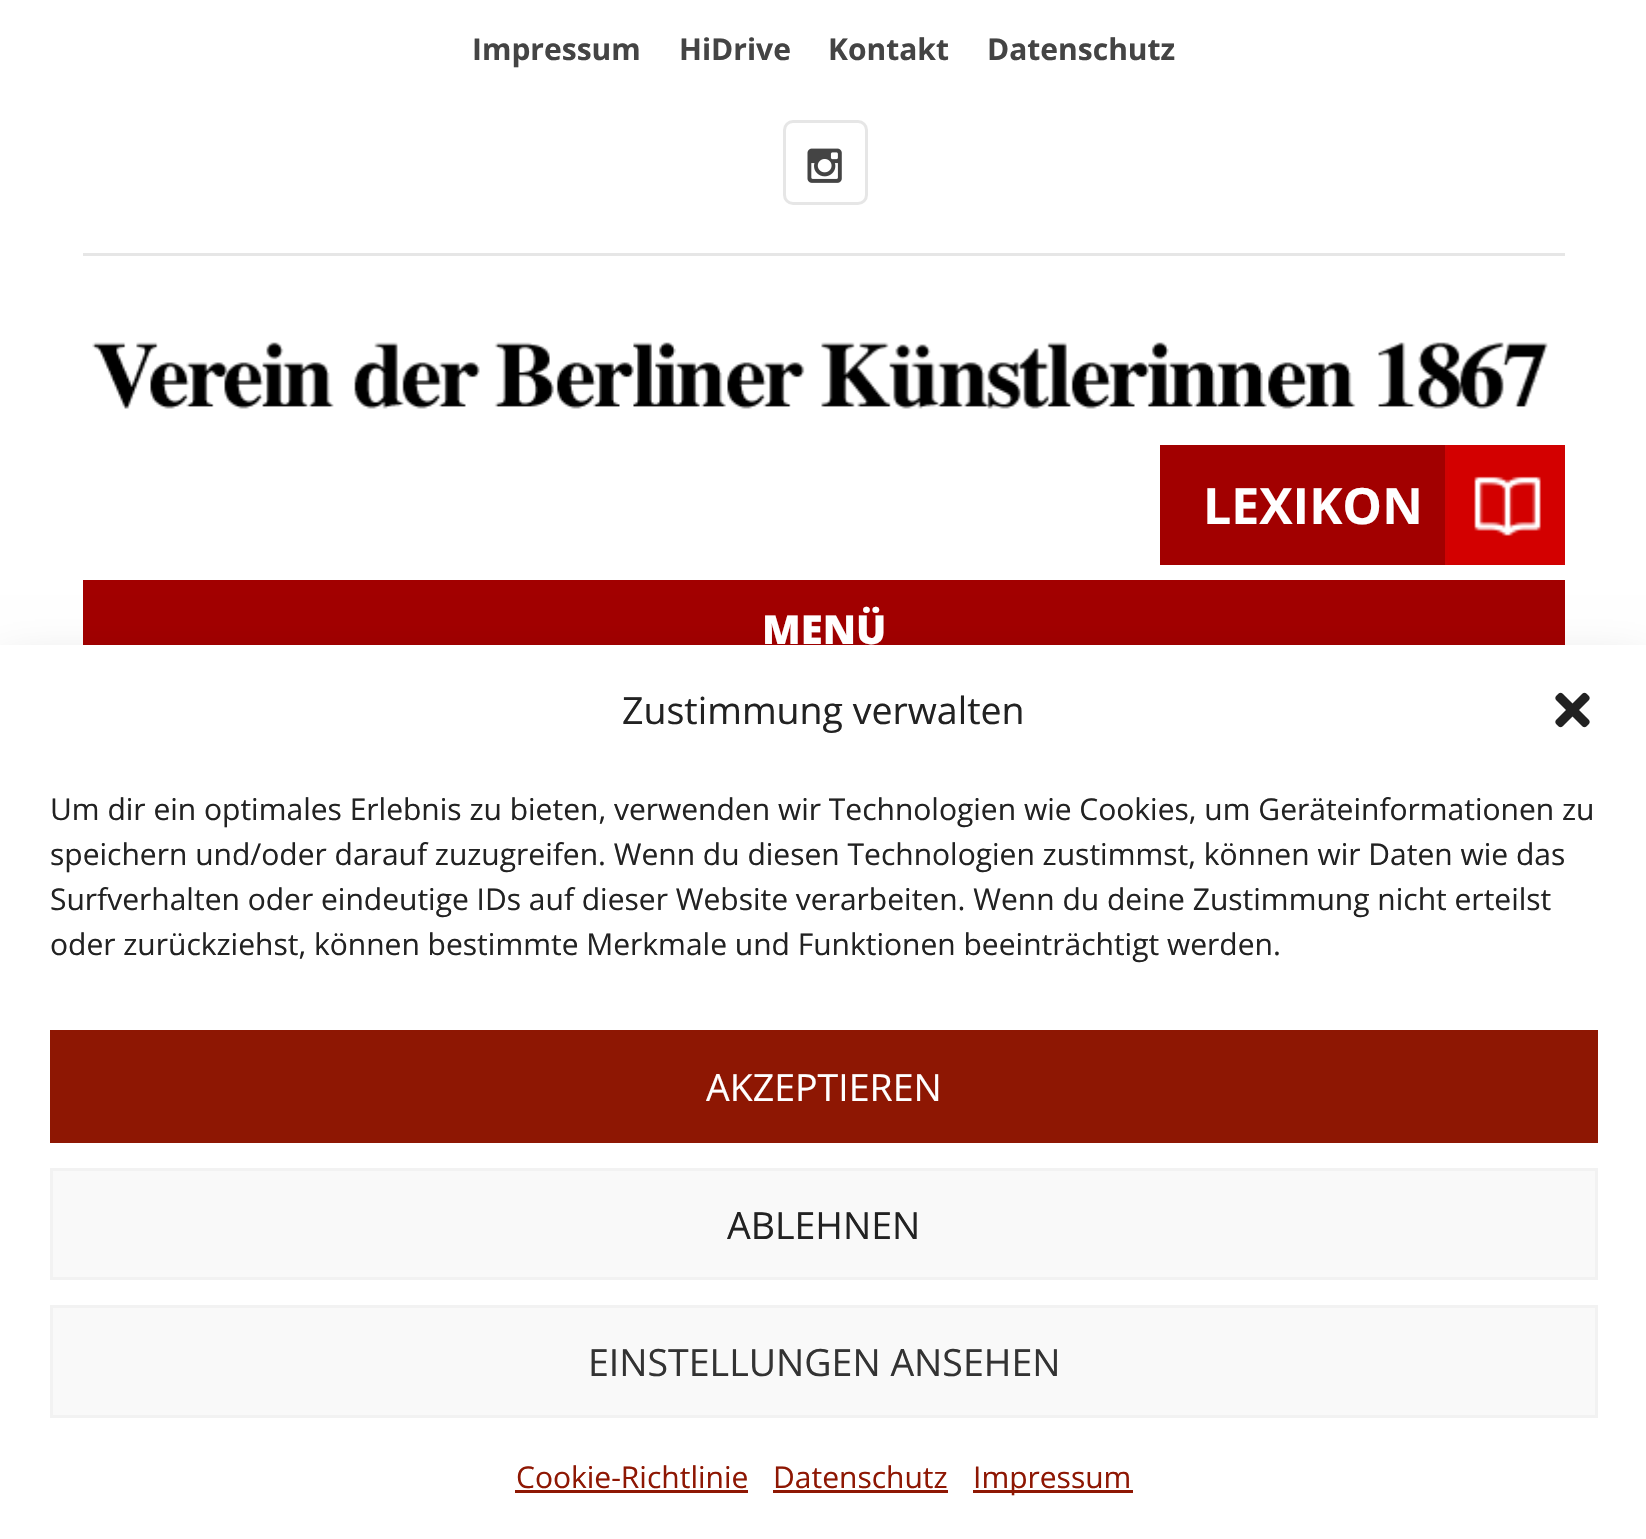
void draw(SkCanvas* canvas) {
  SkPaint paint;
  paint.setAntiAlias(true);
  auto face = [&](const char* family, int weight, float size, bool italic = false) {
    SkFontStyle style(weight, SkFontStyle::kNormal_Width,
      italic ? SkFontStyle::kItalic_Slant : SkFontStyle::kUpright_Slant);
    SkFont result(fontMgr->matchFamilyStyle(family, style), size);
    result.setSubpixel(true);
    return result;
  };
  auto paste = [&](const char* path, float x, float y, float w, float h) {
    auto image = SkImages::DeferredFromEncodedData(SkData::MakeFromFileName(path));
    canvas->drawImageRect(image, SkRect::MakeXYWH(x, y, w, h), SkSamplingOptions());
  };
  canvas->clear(0xffffffff);
  paint.setColor(0xffe6e6e6);
  canvas->drawRect(SkRect::MakeXYWH(83, 253, 1482, 3), paint);
  paint.setStroke(true);
  paint.setStrokeWidth(3);
  canvas->drawRoundRect(SkRect::MakeXYWH(784.5f, 121.5f, 82, 82), 8.5f, 8.5f, paint);
  paste("img/1.png", 807, 148, 35, 35);
  paste("img/2.png", 92, 342, 1456, 67);
  paint.setStroke(false);
  paint.setColor(0xffa20000);
  canvas->drawRect(SkRect::MakeXYWH(1160, 445, 285, 120), paint);
  paste("img/3.png", 1445, 445, 120, 120);
  canvas->drawRect(SkRect::MakeXYWH(83, 580, 1482, 65), paint);
  paint.setColor(0x30000000);
  paint.setMaskFilter(SkMaskFilter::MakeBlur(kNormal_SkBlurStyle, 25));
  canvas->drawRect(SkRect::MakeXYWH(0, 670, 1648, 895), paint);
  paint.setMaskFilter(nullptr);
  paint.setColor(0xffffffff);
  canvas->drawRect(SkRect::MakeXYWH(0, 645, 1646, 894), paint);
  paste("img/4.png", 1555, 692, 35, 36);
  paint.setColor(0xff8e1703);
  canvas->drawRect(SkRect::MakeXYWH(50, 1030, 1548, 113), paint);
  paint.setColor(0xfff9f9f9);
  canvas->drawRect(SkRect::MakeXYWH(51.5f, 1169.5f, 1545, 109), paint);
  paint.setStroke(true);
  paint.setColor(0xfff2f2f2);
  canvas->drawRect(SkRect::MakeXYWH(51.5f, 1169.5f, 1545, 109), paint);
  paint.setStroke(false);
  paint.setColor(0xfff9f9f9);
  canvas->drawRect(SkRect::MakeXYWH(51.5f, 1306.5f, 1545, 110), paint);
  paint.setStroke(true);
  paint.setColor(0xfff2f2f2);
  canvas->drawRect(SkRect::MakeXYWH(51.5f, 1306.5f, 1545, 110), paint);
  paint.setStroke(false);
  {
    const struct { float x, y, w, h; SkColor color; } items[] = {
      {515, 1490, 233, 3, 0xff8e1703},
      {773, 1490, 175, 3, 0xff8e1703},
      {973, 1490, 160, 3, 0xff8e1703},
    };
    for (auto [x, y, w, h, color] : items) {
      paint.setColor(color);
      canvas->drawRect(SkRect::MakeXYWH(x, y, w, h), paint);
    }
  }
  auto f0 = face("Open Sans", 700, 30);
  paint.setColor(0xff444444);
  {
    const struct { const char* s; float x, y; } items[] = {
      {"Impressum", 472, 60},
      {"HiDrive", 679, 60},
      {"Kontakt", 828, 60},
      {"Datenschutz", 987, 60},
    };
    for (auto [s, x, y] : items) {
      canvas->drawString(s, x, y, f0, paint);
    }
  }
  auto f1 = face("Open Sans", 700, 50);
  paint.setColor(0xffffffff);
  canvas->drawString("LEXIKON", 1203, 524, f1, paint);
  auto f2 = face("Open Sans", 800, 40);
  canvas->drawString("MENÜ", 762, 644, f2, paint);
  auto f3 = face("Open Sans", 400, 37.5f);
  paint.setColor(0xff222222);
  canvas->drawString("Zustimmung verwalten", 622, 724, f3, paint);
  auto f4 = face("Open Sans", 400, 30);
  {
    const struct { const char* s; float x, y; } items[] = {
      {"Um dir ein optimales Erlebnis zu bieten, verwenden wir Technologien wie Cookies, um Geräteinformationen zu", 50, 820},
      {"speichern und/oder darauf zuzugreifen. Wenn du diesen Technologien zustimmst, können wir Daten wie das", 50, 865},
      {"Surfverhalten oder eindeutige IDs auf dieser Website verarbeiten. Wenn du deine Zustimmung nicht erteilst", 50, 910},
      {"oder zurückziehst, können bestimmte Merkmale und Funktionen beeinträchtigt werden.", 50, 955},
    };
    for (auto [s, x, y] : items) {
      canvas->drawString(s, x, y, f4, paint);
    }
  }
  paint.setColor(0xffffffff);
  canvas->drawString("AKZEPTIEREN", 706, 1101, f3, paint);
  paint.setColor(0xff222222);
  canvas->drawString("ABLEHNEN", 727, 1239, f3, paint);
  paint.setColor(0xff333333);
  canvas->drawString("EINSTELLUNGEN ANSEHEN", 588, 1376, f3, paint);
  paint.setColor(0xff8e1703);
  {
    const struct { const char* s; float x, y; } items[] = {
      {"Cookie-Richtlinie", 516, 1488},
      {"Datenschutz", 773, 1488},
      {"Impressum", 973, 1488},
    };
    for (auto [s, x, y] : items) {
      canvas->drawString(s, x, y, f4, paint);
    }
  }
}
